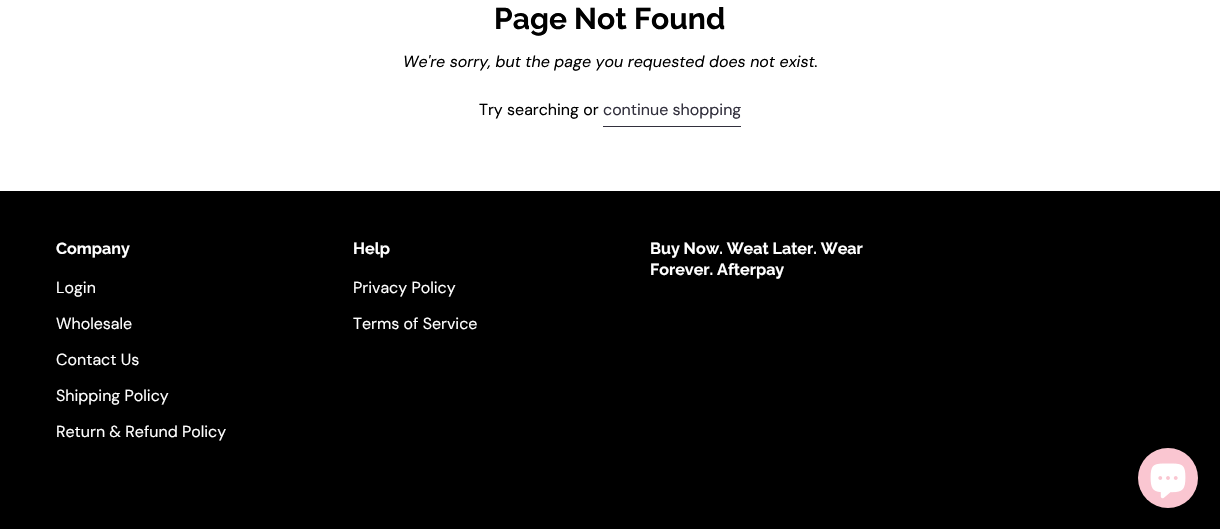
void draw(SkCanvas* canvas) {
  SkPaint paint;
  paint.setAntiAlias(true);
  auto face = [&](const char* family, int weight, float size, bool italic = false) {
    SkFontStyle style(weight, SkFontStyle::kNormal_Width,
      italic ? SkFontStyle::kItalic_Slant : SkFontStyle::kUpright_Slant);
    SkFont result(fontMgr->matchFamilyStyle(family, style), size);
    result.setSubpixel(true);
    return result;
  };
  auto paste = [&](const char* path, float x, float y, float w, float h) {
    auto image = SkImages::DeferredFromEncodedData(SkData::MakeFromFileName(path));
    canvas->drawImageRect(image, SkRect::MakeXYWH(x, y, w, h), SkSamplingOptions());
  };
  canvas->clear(0xffffffff);
  paint.setColor(0xff32303d);
  canvas->drawRect(SkRect::MakeXYWH(603, 126, 138, 1), paint);
  paint.setColor(0xff000000);
  canvas->drawRect(SkRect::MakeXYWH(0, 191, 1220, 338), paint);
  paint.setColor(0xfffac6d1);
  canvas->drawCircle(1168, 478, 30, paint);
  paste("img/1.png", 1150, 463, 36, 36);
  auto f0 = face("Raleway", 700, 30);
  paint.setColor(0xff000000);
  canvas->drawString("Page Not Found", 494, 29, f0, paint);
  auto f1 = face("DM Sans", 400, 16, true);
  canvas->drawString("We're sorry, but the page you requested does not exist.", 403, 67, f1, paint);
  auto f2 = face("DM Sans", 400, 16);
  canvas->drawString("Try searching or", 479, 115, f2, paint);
  paint.setColor(0xff32303d);
  canvas->drawString("continue shopping", 603, 115, f2, paint);
  auto f3 = face("Raleway", 700, 16.1f);
  paint.setColor(0xffffffff);
  canvas->drawString("Company", 56, 254, f3, paint);
  {
    const struct { const char* s; float x, y; } items[] = {
      {"Login", 56, 293},
      {"Wholesale", 56, 329},
      {"Contact Us", 56, 365},
      {"Shipping Policy", 56, 401},
      {"Return & Refund Policy", 56, 437},
    };
    for (auto [s, x, y] : items) {
      canvas->drawString(s, x, y, f2, paint);
    }
  }
  canvas->drawString("Help", 353, 254, f3, paint);
  canvas->drawString("Privacy Policy", 353, 293, f2, paint);
  canvas->drawString("Terms of Service", 353, 329, f2, paint);
  canvas->drawString("Buy Now. Weat Later. Wear", 650, 254, f3, paint);
  canvas->drawString("Forever. Afterpay", 650, 275, f3, paint);
}
